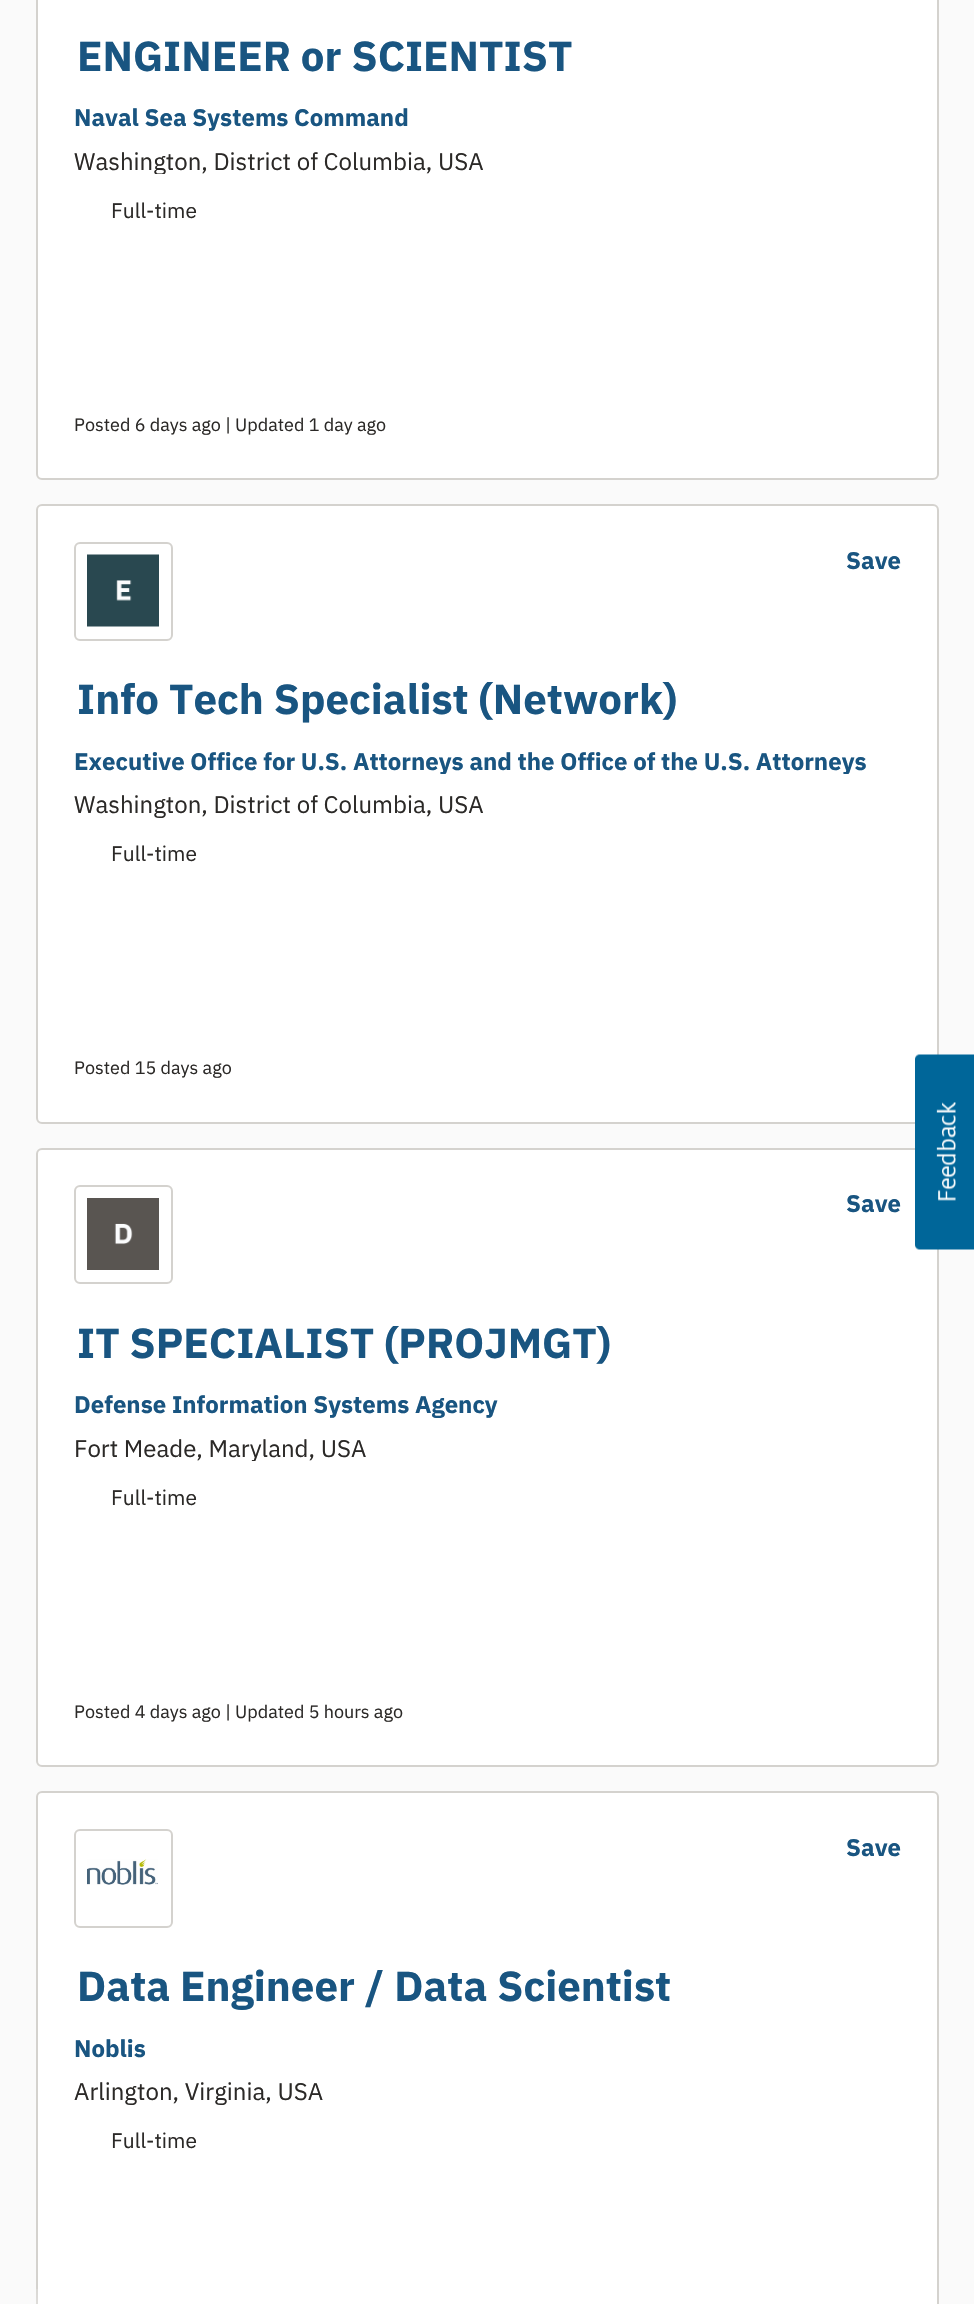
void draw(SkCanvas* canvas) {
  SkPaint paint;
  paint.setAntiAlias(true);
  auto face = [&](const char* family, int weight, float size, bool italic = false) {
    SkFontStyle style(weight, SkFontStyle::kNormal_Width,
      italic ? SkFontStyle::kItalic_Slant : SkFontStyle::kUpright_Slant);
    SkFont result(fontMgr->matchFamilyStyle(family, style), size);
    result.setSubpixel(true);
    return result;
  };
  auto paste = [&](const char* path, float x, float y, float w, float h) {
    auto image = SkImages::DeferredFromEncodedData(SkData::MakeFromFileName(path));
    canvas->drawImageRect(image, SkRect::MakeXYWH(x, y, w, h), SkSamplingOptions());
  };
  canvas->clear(0xfffafafa);
  paint.setColor(0xffffffff);
  canvas->drawRoundRect(SkRect::MakeXYWH(37, -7, 901, 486), 5, 5, paint);
  paint.setStroke(true);
  paint.setStrokeWidth(2);
  paint.setColor(0xffd4d2ce);
  canvas->drawRoundRect(SkRect::MakeXYWH(37, -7, 901, 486), 5, 5, paint);
  paint.setStroke(false);
  paint.setColor(0xffffffff);
  canvas->drawRoundRect(SkRect::MakeXYWH(37, 505, 901, 618), 5, 5, paint);
  paint.setStroke(true);
  paint.setColor(0xffd4d2ce);
  canvas->drawRoundRect(SkRect::MakeXYWH(37, 505, 901, 618), 5, 5, paint);
  canvas->drawRoundRect(SkRect::MakeXYWH(75, 543, 97, 97), 5, 5, paint);
  paste("img/1.png", 87, 554, 72, 73);
  paint.setStroke(false);
  paint.setColor(0xffffffff);
  canvas->drawRoundRect(SkRect::MakeXYWH(37, 1149, 901, 617), 5, 5, paint);
  paint.setStroke(true);
  paint.setColor(0xffd4d2ce);
  canvas->drawRoundRect(SkRect::MakeXYWH(37, 1149, 901, 617), 5, 5, paint);
  canvas->drawRoundRect(SkRect::MakeXYWH(75, 1186, 97, 97), 5, 5, paint);
  paste("img/2.png", 87, 1198, 72, 72);
  paint.setStroke(false);
  paint.setColor(0xffffffff);
  canvas->drawRoundRect(SkRect::MakeXYWH(37, 1792, 901, 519), 5, 5, paint);
  paint.setStroke(true);
  paint.setColor(0xffd4d2ce);
  canvas->drawRoundRect(SkRect::MakeXYWH(37, 1792, 901, 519), 5, 5, paint);
  canvas->drawRoundRect(SkRect::MakeXYWH(75, 1830, 97, 97), 5, 5, paint);
  paste("img/3.png", 87, 1859, 71, 26);
  paint.setStroke(false);
  {
    const SkColor colors[] = {0x00ffffff, 0x94ffffff, 0xffffffff};
    const float stops[] = {0, 0.28f, 0.49f};
    const SkPoint ends[] = {{483, 2268}, {483, 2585}};
    paint.setShader(SkGradientShader::MakeLinear(ends, colors, stops, 3, SkTileMode::kClamp));
    paint.setAlpha(255);
  }
  canvas->drawRect(SkRect::MakeXYWH(36, 2289, 2, 15), paint);
  paste("img/4.png", 915, 1054, 59, 196);
  auto f0 = face("IBM Plex Sans", 700, 42);
  paint.setShader(nullptr);
  paint.setColor(0xff195581);
  canvas->drawString("ENGINEER or SCIENTIST", 77, 71, f0, paint);
  auto f1 = face("IBM Plex Sans", 700, 24);
  canvas->drawString("Naval Sea Systems Command", 74, 126, f1, paint);
  canvas->save();
  canvas->clipRect(SkRect::MakeXYWH(74, 143, 828, 31));
  auto f2 = face("IBM Plex Sans", 400, 24);
  paint.setColor(0xff2b2927);
  canvas->drawString("Washington, District of Columbia, USA", 74, 170, f2, paint);
  canvas->restore();
  auto f3 = face("IBM Plex Sans", 400, 21);
  canvas->drawString("Full-time", 111, 218, f3, paint);
  auto f4 = face("IBM Plex Sans", 400, 18);
  canvas->drawString("Posted 6 days ago | Updated 1 day ago", 74, 431, f4, paint);
  paint.setColor(0xff195581);
  canvas->drawString("Save", 846, 569, f1, paint);
  canvas->drawString("Info Tech Specialist (Network)", 77, 714, f0, paint);
  canvas->save();
  canvas->clipRect(SkRect::MakeXYWH(74, 743, 792, 31));
  canvas->drawString("Executive Office for U.S. Attorneys and the Office of the U.S. Attorneys", 74, 770, f1, paint);
  canvas->restore();
  paint.setColor(0xff2b2927);
  canvas->drawString("Washington, District of Columbia, USA", 74, 813, f2, paint);
  canvas->drawString("Full-time", 111, 861, f3, paint);
  canvas->drawString("Posted 15 days ago", 74, 1074, f4, paint);
  paint.setColor(0xff195581);
  canvas->drawString("Save", 846, 1212, f1, paint);
  canvas->drawString("IT SPECIALIST (PROJMGT)", 77, 1358, f0, paint);
  canvas->drawString("Defense Information Systems Agency", 74, 1413, f1, paint);
  canvas->save();
  canvas->clipRect(SkRect::MakeXYWH(74, 1430, 828, 31));
  paint.setColor(0xff2b2927);
  canvas->drawString("Fort Meade, Maryland, USA", 74, 1457, f2, paint);
  canvas->restore();
  canvas->drawString("Full-time", 111, 1505, f3, paint);
  canvas->drawString("Posted 4 days ago | Updated 5 hours ago", 74, 1718, f4, paint);
  paint.setColor(0xff195581);
  canvas->drawString("Save", 846, 1856, f1, paint);
  canvas->drawString("Data Engineer / Data Scientist", 77, 2001, f0, paint);
  canvas->drawString("Noblis", 74, 2057, f1, paint);
  paint.setColor(0xff2b2927);
  canvas->drawString("Arlington, Virginia, USA", 74, 2100, f2, paint);
  canvas->drawString("Full-time", 111, 2148, f3, paint);
}
